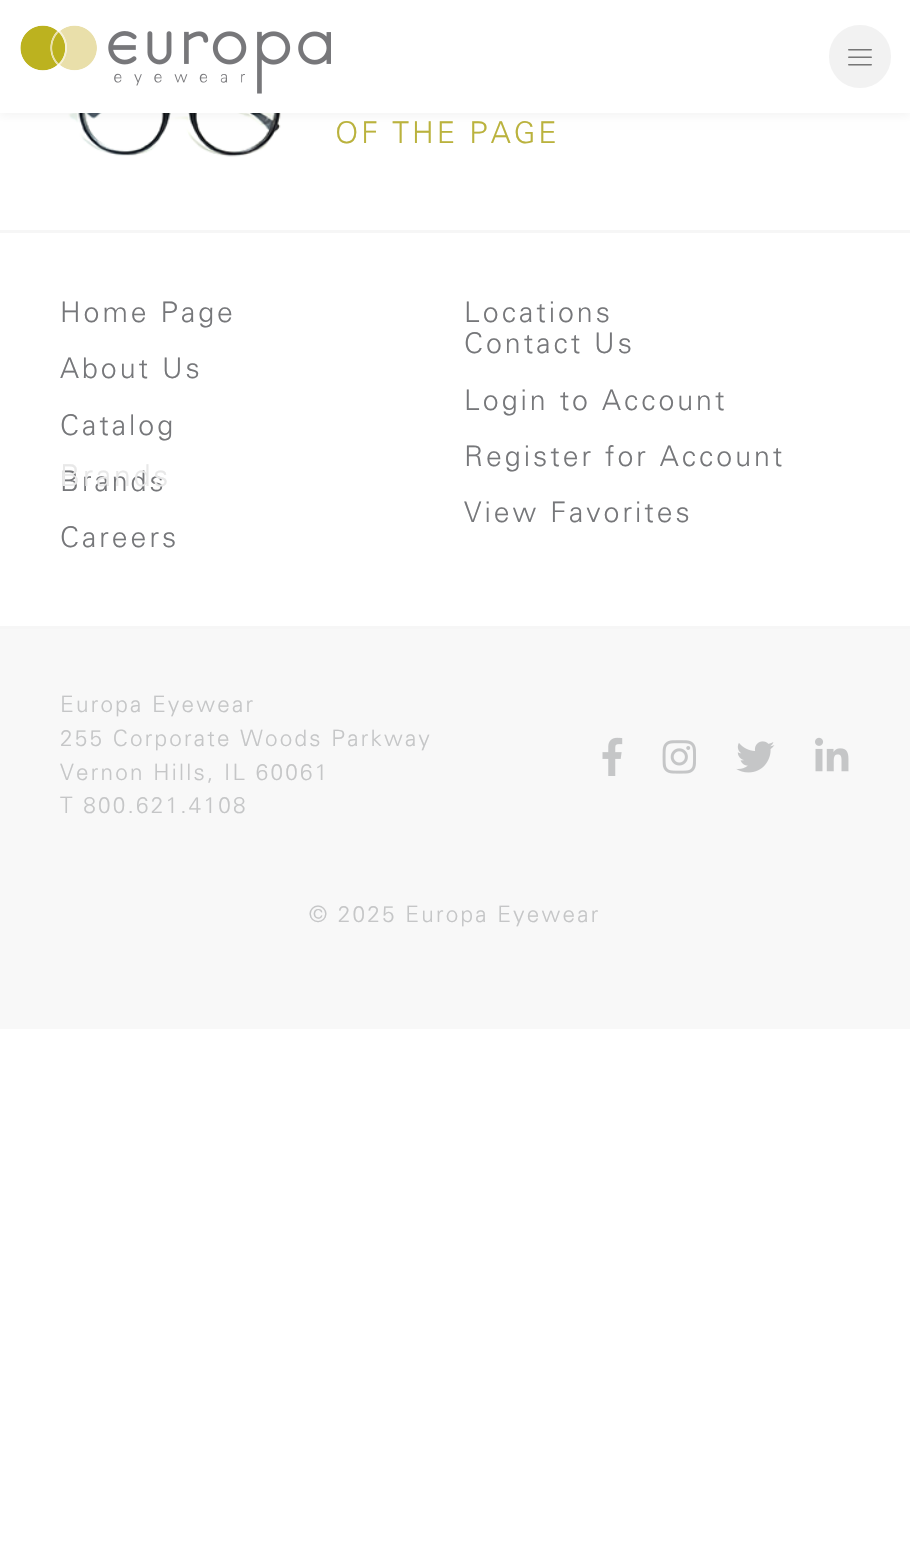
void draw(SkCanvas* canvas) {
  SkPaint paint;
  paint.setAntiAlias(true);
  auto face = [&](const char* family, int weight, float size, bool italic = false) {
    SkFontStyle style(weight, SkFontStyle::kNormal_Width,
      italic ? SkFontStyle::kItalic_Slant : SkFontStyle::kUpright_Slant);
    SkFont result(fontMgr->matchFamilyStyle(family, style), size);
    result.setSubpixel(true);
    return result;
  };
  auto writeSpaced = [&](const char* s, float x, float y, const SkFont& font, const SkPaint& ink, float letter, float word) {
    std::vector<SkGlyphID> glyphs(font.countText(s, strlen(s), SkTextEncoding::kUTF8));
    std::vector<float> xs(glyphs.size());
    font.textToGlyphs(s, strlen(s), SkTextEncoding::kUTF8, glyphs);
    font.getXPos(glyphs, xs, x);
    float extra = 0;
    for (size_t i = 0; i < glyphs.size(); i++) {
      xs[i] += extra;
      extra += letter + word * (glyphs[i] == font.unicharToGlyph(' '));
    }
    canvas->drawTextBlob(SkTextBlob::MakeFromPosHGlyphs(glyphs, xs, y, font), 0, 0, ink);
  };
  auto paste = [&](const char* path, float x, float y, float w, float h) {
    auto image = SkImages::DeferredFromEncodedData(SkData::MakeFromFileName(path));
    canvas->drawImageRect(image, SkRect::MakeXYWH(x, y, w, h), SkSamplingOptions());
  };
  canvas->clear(0xffffffff);
  paste("img/1.png", 68, 113, 223, 44);
  {
    const struct { float x, y, w, h; SkColor color; } items[] = {
      {0, 230, 910, 3, 0xfff6f6f6},
      {0, 626, 910, 3, 0xfff6f6f6},
      {0, 629, 910, 400, 0xfff8f8f8},
    };
    for (auto [x, y, w, h, color] : items) {
      paint.setColor(color);
      canvas->drawRect(SkRect::MakeXYWH(x, y, w, h), paint);
    }
  }
  paste("img/2.png", 602, 737, 21, 39);
  paste("img/3.png", 662, 740, 34, 34);
  paste("img/4.png", 736, 741, 39, 32);
  paste("img/5.png", 815, 737, 34, 35);
  paint.setColor(0x0d000000);
  paint.setMaskFilter(SkMaskFilter::MakeBlur(kNormal_SkBlurStyle, 5));
  canvas->drawRect(SkRect::MakeXYWH(0, 3, 910, 112), paint);
  paint.setMaskFilter(nullptr);
  paint.setColor(0xffffffff);
  canvas->drawRect(SkRect::MakeXYWH(0, 0, 910, 113), paint);
  paste("img/6.png", 20, 25, 311, 69);
  paint.setColor(0xfff2f2f2);
  canvas->drawRoundRect(SkRect::MakeXYWH(829, 25, 62, 63), 31, 31, paint);
  paste("img/7.png", 848, 49, 24, 17);
  auto f0 = face("Univers", 300, 30);
  paint.setColor(0xffbab23d);
  writeSpaced("OF THE PAGE", 335, 143, f0, paint, 3, 0);
  auto f1 = face("Univers", 300, 28.5f);
  paint.setColor(0xff76777a);
  {
    const struct { const char* s; float x, y; } items[] = {
      {"Home Page", 60, 322},
      {"Locations", 464, 322},
      {"About Us", 60, 378},
      {"Catalog", 60, 435},
      {"Brands", 60, 491},
      {"Careers", 60, 547},
      {"Contact Us", 464, 353},
      {"Login to Account", 464, 410},
      {"Register for Account", 464, 466},
      {"View Favorites", 464, 522},
    };
    for (auto [s, x, y] : items) {
      writeSpaced(s, x, y, f1, paint, 3, 0);
    }
  }
  auto f2 = face("Univers", 300, 22.5f);
  paint.setColor(0xffc5c6c7);
  {
    const struct { const char* s; float x, y; } items[] = {
      {"Europa Eyewear", 60, 712},
      {"255 Corporate Woods Parkway", 60, 746},
      {"Vernon Hills, IL 60061", 60, 780},
      {"T 800.621.4108", 60, 813},
      {"© 2025 Europa Eyewear", 309, 922},
    };
    for (auto [s, x, y] : items) {
      writeSpaced(s, x, y, f2, paint, 2.25f, 0);
    }
  }
  paint.setColor(0xffe8e8e8);
  writeSpaced("Brands", 60, 486, f0, paint, 3, 0);
}
